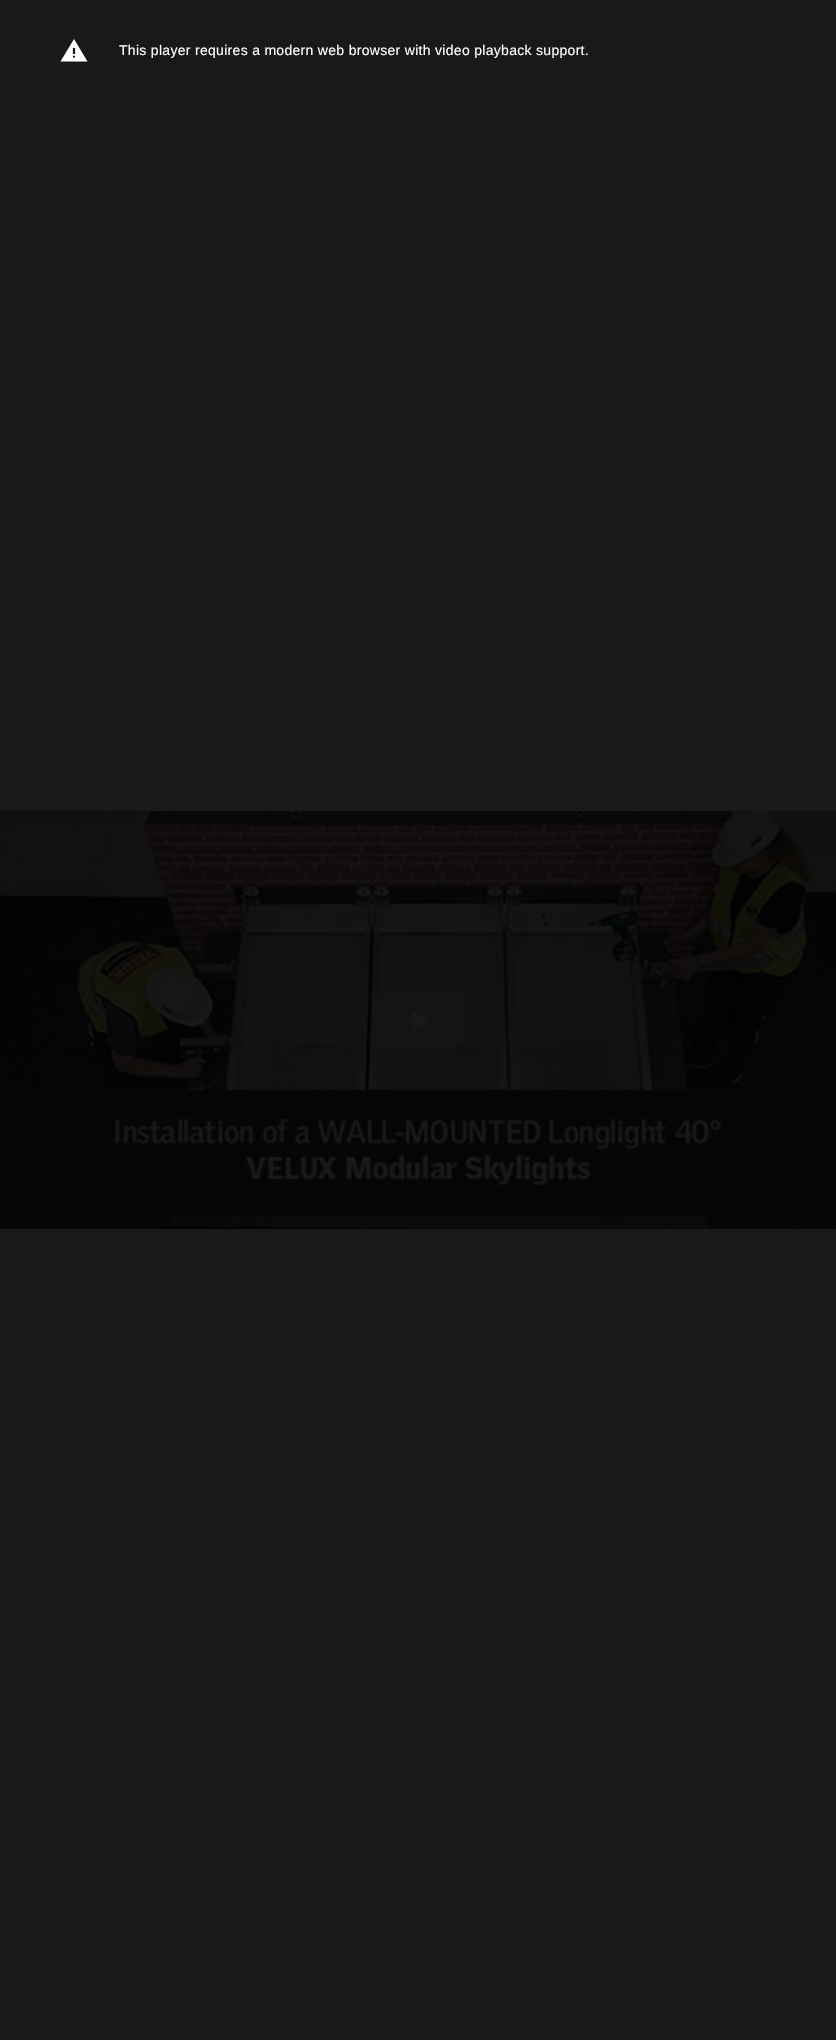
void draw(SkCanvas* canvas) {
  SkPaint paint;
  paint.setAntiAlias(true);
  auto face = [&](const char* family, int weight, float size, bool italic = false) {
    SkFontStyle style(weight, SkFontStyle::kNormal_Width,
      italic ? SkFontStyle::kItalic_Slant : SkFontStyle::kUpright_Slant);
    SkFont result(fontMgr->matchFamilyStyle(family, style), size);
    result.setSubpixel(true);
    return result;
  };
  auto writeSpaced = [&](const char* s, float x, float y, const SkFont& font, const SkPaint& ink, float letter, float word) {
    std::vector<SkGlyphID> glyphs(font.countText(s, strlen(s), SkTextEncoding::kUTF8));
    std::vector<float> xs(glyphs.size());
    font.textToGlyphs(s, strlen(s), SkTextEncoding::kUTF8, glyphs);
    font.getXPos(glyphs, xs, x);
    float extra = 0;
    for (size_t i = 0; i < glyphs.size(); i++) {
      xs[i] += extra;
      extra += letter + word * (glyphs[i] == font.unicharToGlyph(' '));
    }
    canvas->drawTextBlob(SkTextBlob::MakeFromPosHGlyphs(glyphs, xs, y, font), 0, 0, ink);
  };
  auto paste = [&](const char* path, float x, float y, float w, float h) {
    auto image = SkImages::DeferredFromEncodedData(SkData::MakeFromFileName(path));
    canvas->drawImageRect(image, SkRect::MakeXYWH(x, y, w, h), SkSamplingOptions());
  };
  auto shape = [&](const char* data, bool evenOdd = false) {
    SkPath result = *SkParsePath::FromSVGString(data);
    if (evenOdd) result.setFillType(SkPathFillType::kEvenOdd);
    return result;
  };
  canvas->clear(0xff191919);
  paste("img/1.png", 60, 39, 28, 23);
  paste("img/2.png", 0, 811, 836, 418);
  paint.setColor(0xff141414);
  canvas->drawRoundRect(SkRect::MakeXYWH(373, 995, 91, 51), 4, 4, paint);
  paint.setColor(0xff191919);
  canvas->drawPath(shape("M412.5 1010.5V1030L428 1020Z"), paint);
  auto f0 = face("Liberation Sans", 400, 14);
  paint.setColor(0xffffffff);
  writeSpaced("This player requires a modern web browser with video playback support.", 119, 55, f0, paint, 0.3f, 0);
}
